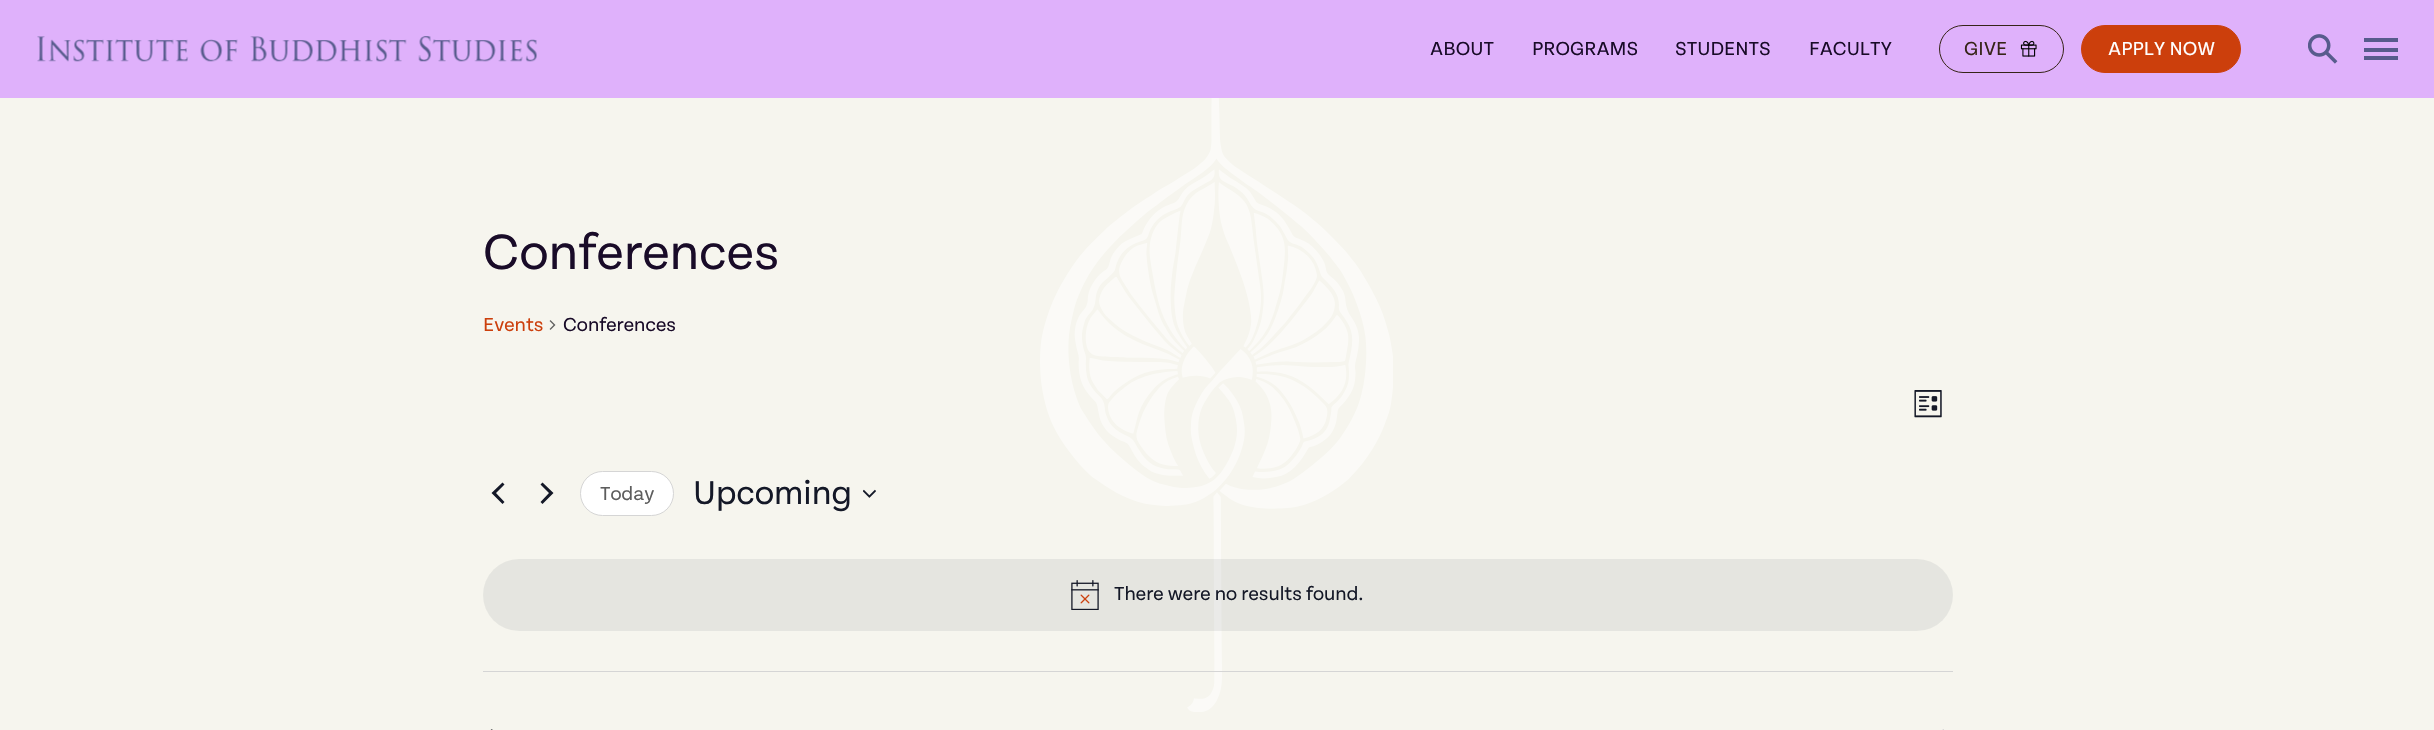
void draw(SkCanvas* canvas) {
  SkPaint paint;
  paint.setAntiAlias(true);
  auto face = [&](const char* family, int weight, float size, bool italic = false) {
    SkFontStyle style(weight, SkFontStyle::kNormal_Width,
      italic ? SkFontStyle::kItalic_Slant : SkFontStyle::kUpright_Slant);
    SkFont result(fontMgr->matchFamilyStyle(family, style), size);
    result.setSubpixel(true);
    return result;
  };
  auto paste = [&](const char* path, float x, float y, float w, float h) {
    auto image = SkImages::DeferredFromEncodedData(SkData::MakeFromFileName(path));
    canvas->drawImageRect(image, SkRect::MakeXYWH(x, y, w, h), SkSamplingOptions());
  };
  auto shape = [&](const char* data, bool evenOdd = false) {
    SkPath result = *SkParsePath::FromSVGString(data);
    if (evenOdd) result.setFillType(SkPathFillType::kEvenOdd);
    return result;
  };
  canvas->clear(0xfff6f5ee);
  paste("img/1.png", 1040, 98, 353, 614);
  paint.setColor(0xffdfb1fb);
  canvas->drawRect(SkRect::MakeXYWH(0, 0, 2434, 98), paint);
  paste("img/2.png", 37, 36, 500, 26);
  paint.setStroke(true);
  paint.setStrokeWidth(1);
  paint.setColor(0xff362417);
  canvas->drawRoundRect(SkRect::MakeXYWH(1939.5f, 25.5f, 124, 47), 23.5f, 23.5f, paint);
  paste("img/3.png", 2020, 40, 17, 17);
  paint.setStroke(false);
  paint.setColor(0xffcc3f0c);
  canvas->drawRoundRect(SkRect::MakeXYWH(2081.5f, 25.5f, 159, 47), 23.5f, 23.5f, paint);
  paint.setStroke(true);
  canvas->drawRoundRect(SkRect::MakeXYWH(2081.5f, 25.5f, 159, 47), 23.5f, 23.5f, paint);
  paste("img/4.png", 2308, 34, 30, 30);
  paint.setStroke(false);
  {
    const struct { float x, y, w, h; SkColor color; } items[] = {
      {2364, 38, 34, 4, 0xff575b8c},
      {2364, 48, 34, 4, 0xff575b8c},
      {2364, 56, 34, 4, 0xff575b8c},
    };
    for (auto [x, y, w, h, color] : items) {
      paint.setColor(color);
      canvas->drawRect(SkRect::MakeXYWH(x, y, w, h), paint);
    }
  }
  paste("img/5.png", 549, 320, 7, 10);
  paste("img/6.png", 1914, 390, 28, 28);
  paint.setColor(0xff141827);
  canvas->drawPath(shape("M504.5 502L502.5 504L491.5 493L502.5 482.5L504.5 484.5L496 493ZM540.5 484.5L542.5 482.5L553.5 493L542.5 504L540.5 502L549 493Z"), paint);
  paint.setColor(0xffffffff);
  canvas->drawRoundRect(SkRect::MakeXYWH(580.5f, 471.5f, 93, 44), 22, 22, paint);
  paint.setStroke(true);
  paint.setColor(0xffd5d5d5);
  canvas->drawRoundRect(SkRect::MakeXYWH(580.5f, 471.5f, 93, 44), 22, 22, paint);
  paste("img/7.png", 863, 489, 13, 9);
  paint.setStroke(false);
  paint.setColor(0x12141827);
  canvas->drawRoundRect(SkRect::MakeXYWH(483, 559, 1470, 72), 36, 36, paint);
  paste("img/8.png", 1071, 580, 28, 30);
  paint.setColor(0xffd5d5d5);
  canvas->drawRect(SkRect::MakeXYWH(483, 671, 1470, 1), paint);
  paste("img/9.png", 490, 729, 3, 1);
  paste("img/10.png", 1942, 729, 2, 1);
  auto f0 = face("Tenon", 400, 20);
  paint.setColor(0xff190b28);
  {
    const struct { const char* s; float x, y; } items[] = {
      {"ABOUT", 1430, 55},
      {"PROGRAMS", 1532, 55},
      {"STUDENTS", 1675, 55},
      {"FACULTY", 1809, 55},
    };
    for (auto [s, x, y] : items) {
      canvas->drawString(s, x, y, f0, paint);
    }
  }
  paint.setColor(0xff362417);
  canvas->drawString("GIVE", 1964, 55, f0, paint);
  paint.setColor(0xffffffff);
  canvas->drawString("APPLY NOW", 2108, 55, f0, paint);
  auto f1 = face("Tenon", 400, 52.5f);
  paint.setColor(0xff190b28);
  canvas->drawString("Conferences", 483, 269, f1, paint);
  paint.setColor(0xffcc3f0c);
  canvas->drawString("Events", 483, 331, f0, paint);
  paint.setColor(0xff190b28);
  canvas->drawString("Conferences", 563, 331, f0, paint);
  paint.setColor(0xff5d5d5d);
  canvas->drawString("Today", 600, 500, f0, paint);
  auto f2 = face("Tenon", 400, 35);
  paint.setColor(0xff141827);
  canvas->drawString("Upcoming", 693, 504, f2, paint);
  canvas->drawString("There were no results found.", 1114, 600, f0, paint);
}
